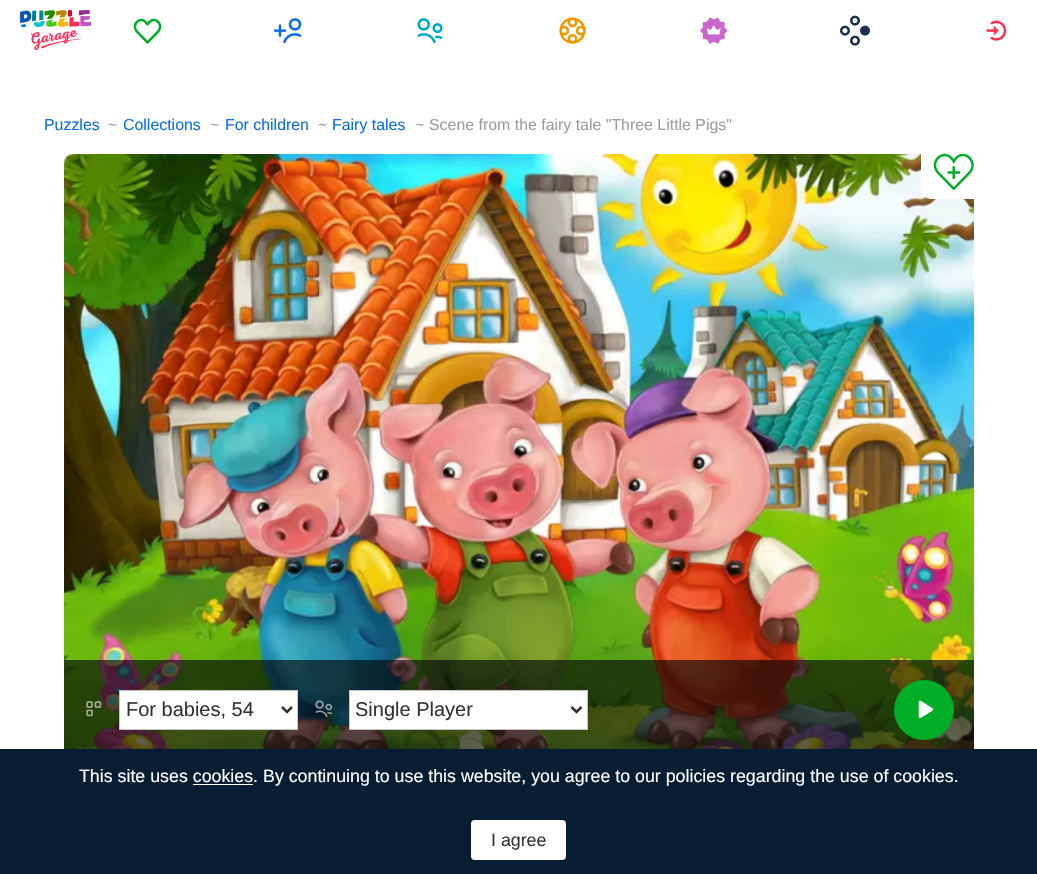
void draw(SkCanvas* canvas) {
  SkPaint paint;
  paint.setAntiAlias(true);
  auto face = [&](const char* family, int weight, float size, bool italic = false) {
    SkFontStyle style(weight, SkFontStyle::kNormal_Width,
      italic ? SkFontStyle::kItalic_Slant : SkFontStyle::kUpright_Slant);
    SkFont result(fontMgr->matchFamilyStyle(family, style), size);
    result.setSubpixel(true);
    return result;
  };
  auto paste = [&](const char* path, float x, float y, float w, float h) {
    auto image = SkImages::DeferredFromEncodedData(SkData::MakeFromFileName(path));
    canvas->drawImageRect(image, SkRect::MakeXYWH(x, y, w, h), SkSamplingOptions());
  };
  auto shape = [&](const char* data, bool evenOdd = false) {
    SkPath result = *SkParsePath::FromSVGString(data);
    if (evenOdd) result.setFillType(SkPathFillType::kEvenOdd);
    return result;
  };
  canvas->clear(0xffffffff);
  paste("img/1.png", 20, 10, 71, 40);
  paste("img/2.png", 133, 18, 29, 26);
  paste("img/3.png", 274, 18, 28, 26);
  paste("img/4.png", 417, 18, 26, 26);
  paste("img/5.png", 559, 17, 27, 27);
  paste("img/6.png", 700, 17, 28, 27);
  paste("img/7.png", 840, 15, 30, 31);
  paste("img/8.png", 986, 20, 21, 21);
  paste("img/10.png", 64, 154, 910, 595);
  paint.setColor(0xffffffff);
  canvas->drawPath(shape("M921 154H974V199H931C925.5 199 921 194.5 921 189Z"), paint);
  paste("img/9.png", 933, 153, 41, 38);
  paint.setColor(0xa3010407);
  canvas->drawRect(SkRect::MakeXYWH(64, 660, 910, 89), paint);
  paste("img/11.png", 86, 701, 16, 16);
  paint.setColor(0xffffffff);
  canvas->drawRect(SkRect::MakeXYWH(119.5f, 690.5f, 178, 39), paint);
  paint.setStroke(true);
  paint.setStrokeWidth(1);
  paint.setColor(0xffc6c6c6);
  canvas->drawRect(SkRect::MakeXYWH(119.5f, 690.5f, 178, 39), paint);
  paint.setStrokeWidth(2.5f);
  paint.setColor(0xff343434);
  canvas->drawPath(shape("M282 707L287 712L292 707"), paint);
  paste("img/12.png", 315, 700, 17, 18);
  paint.setStroke(false);
  paint.setColor(0xffffffff);
  canvas->drawRect(SkRect::MakeXYWH(349.5f, 690.5f, 238, 39), paint);
  paint.setStroke(true);
  paint.setStrokeWidth(1);
  paint.setColor(0xffc6c6c6);
  canvas->drawRect(SkRect::MakeXYWH(349.5f, 690.5f, 238, 39), paint);
  paint.setStrokeWidth(2.5f);
  paint.setColor(0xff343434);
  canvas->drawPath(shape("M571.5 707L576.5 712L581.5 707"), paint);
  paint.setStroke(false);
  paint.setColor(0xff00ad27);
  canvas->drawCircle(924, 710, 30, paint);
  paste("img/13.png", 918, 700, 16, 18);
  paint.setColor(0xff071d33);
  canvas->drawRect(SkRect::MakeXYWH(0, 749, 1037, 125), paint);
  paint.setColor(0xffffffff);
  canvas->drawRect(SkRect::MakeXYWH(193, 784, 60, 1), paint);
  canvas->drawRoundRect(SkRect::MakeXYWH(471, 820, 95, 40), 4, 4, paint);
  auto f0 = face("Liberation Sans", 400, 15.9f);
  paint.setColor(0xff0d6ee3);
  canvas->drawString("Puzzles", 44, 130, f0, paint);
  paint.setColor(0xff9e9e9e);
  canvas->drawString("~", 108, 130, f0, paint);
  paint.setColor(0xff0d6ee3);
  canvas->drawString("Collections", 123, 130, f0, paint);
  paint.setColor(0xff9e9e9e);
  canvas->drawString("~", 210, 130, f0, paint);
  paint.setColor(0xff0d6ee3);
  canvas->drawString("For children", 225, 130, f0, paint);
  paint.setColor(0xff9e9e9e);
  canvas->drawString("~", 318, 130, f0, paint);
  paint.setColor(0xff0d6ee3);
  canvas->drawString("Fairy tales", 332, 130, f0, paint);
  paint.setColor(0xff9e9e9e);
  canvas->drawString("~", 415, 130, f0, paint);
  canvas->drawString("Scene from the fairy tale \"Three Little Pigs\"", 429, 130, f0, paint);
  auto f1 = face("Liberation Sans", 400, 20);
  paint.setColor(0xff343434);
  canvas->drawString("For babies, 54", 126, 716, f1, paint);
  canvas->drawString("Single Player", 355, 716, f1, paint);
  auto f2 = face("Liberation Sans", 400, 17.8f);
  paint.setColor(0xffffffff);
  canvas->drawString("This site uses cookies. By continuing to use this website, you agree to our policies regarding the use of cookies.", 79, 782, f2, paint);
  paint.setColor(0xff343434);
  canvas->drawString("I agree", 491, 846, f2, paint);
}
